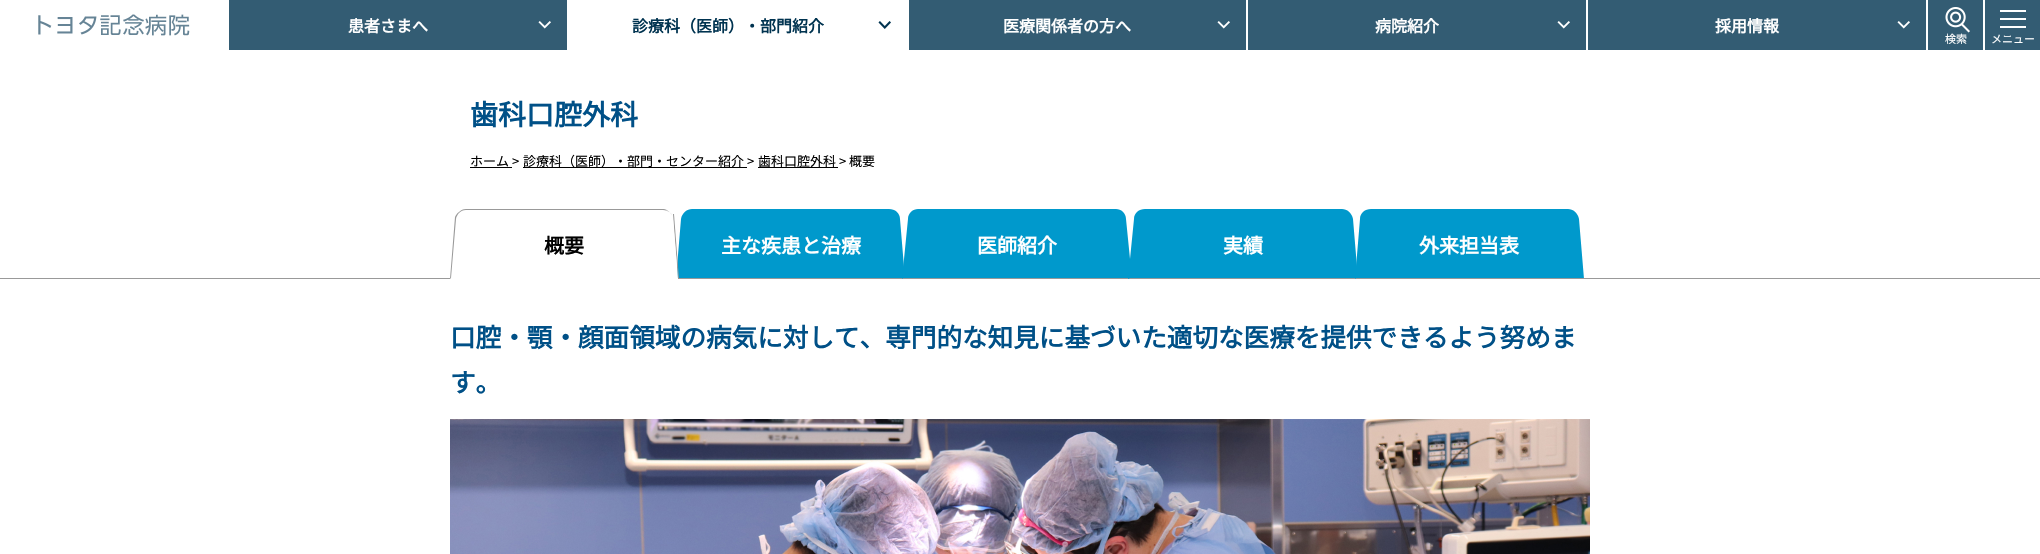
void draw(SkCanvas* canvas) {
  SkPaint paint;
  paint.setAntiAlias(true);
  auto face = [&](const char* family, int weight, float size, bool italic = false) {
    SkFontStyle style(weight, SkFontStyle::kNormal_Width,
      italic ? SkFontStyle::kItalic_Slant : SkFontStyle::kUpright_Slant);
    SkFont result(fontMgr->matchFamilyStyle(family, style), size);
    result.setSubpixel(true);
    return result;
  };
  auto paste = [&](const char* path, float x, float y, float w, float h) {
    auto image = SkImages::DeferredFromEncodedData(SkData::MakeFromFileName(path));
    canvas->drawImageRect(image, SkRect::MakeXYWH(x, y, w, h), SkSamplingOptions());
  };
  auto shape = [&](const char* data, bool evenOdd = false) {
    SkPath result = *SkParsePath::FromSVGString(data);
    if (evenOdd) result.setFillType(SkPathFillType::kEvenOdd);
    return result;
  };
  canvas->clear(0xffffffff);
  paste("img/1.png", 38, 14, 152, 22);
  paint.setColor(0xff335c73);
  canvas->drawRect(SkRect::MakeXYWH(229, 0, 338, 50), paint);
  paste("img/2.png", 538, 21, 13, 8);
  paste("img/3.png", 878, 21, 13, 8);
  canvas->drawRect(SkRect::MakeXYWH(909, 0, 337, 50), paint);
  paste("img/2.png", 1217, 21, 13, 8);
  canvas->drawRect(SkRect::MakeXYWH(1248, 0, 338, 50), paint);
  paste("img/2.png", 1557, 21, 13, 8);
  canvas->drawRect(SkRect::MakeXYWH(1588, 0, 338, 50), paint);
  paste("img/2.png", 1897, 21, 13, 8);
  canvas->drawRect(SkRect::MakeXYWH(1928, 0, 55, 50), paint);
  paste("img/4.png", 1945, 7, 25, 26);
  {
    const struct { float x, y, w, h; SkColor color; } items[] = {
      {1985, 0, 55, 50, 0xff335c73},
      {2000, 18, 26, 2, 0xffffffff},
      {2000, 10, 26, 2, 0xffffffff},
      {2000, 26, 26, 2, 0xffffffff},
      {470, 167, 42, 1, 0xff000000},
      {523, 167, 224, 1, 0xff000000},
      {758, 167, 80, 1, 0xff000000},
      {0, 278, 2040, 1, 0xff999999},
    };
    for (auto [x, y, w, h, color] : items) {
      paint.setColor(color);
      canvas->drawRect(SkRect::MakeXYWH(x, y, w, h), paint);
    }
  }
  paint.setColor(0xff0099cc);
  canvas->drawPath(shape("M692 209C687 209 682 213 681 219L676 279H905L900 219C900 213 895 209 889 209Z"), paint);
  paint.setColor(0xff999999);
  canvas->drawPath(shape("M677 278L676 279H905V278Z"), paint);
  canvas->drawPath(shape("M673 214H674L679 279H678Z"), paint);
  paint.setColor(0xffffffff);
  canvas->drawPath(shape("M466 209C461 209 456 213 455 219L450 279H678L673 219C673 213 668 209 663 209Z"), paint);
  paint.setColor(0xff999999);
  canvas->drawPath(shape("M466 209H663L667 210H466C463 210 461 211 459 213V212C461 210 463 209 466 209Z"), paint);
  canvas->drawPath(shape("M641 209H656C661 209 666 208 670 212.5C668 211 665.5 210 663 210H642ZM670 212.5C671.5 214.5 673 216.5 673 219C673 216.5 671.5 214 670 212.5Z"), paint);
  paint.setColor(0xffffffff);
  canvas->drawPath(shape("M451 278L450 279H678V278Z"), paint);
  paint.setColor(0xff999999);
  canvas->drawPath(shape("M451 278L450 279L455 217C456 215 457 213 459 212V213C458 214 456 217 456 219Z"), paint);
  paint.setColor(0xff0099cc);
  canvas->drawPath(shape("M918 209C913 209 908 213 908 219L902 279H1132L1126 219C1126 213 1121 209 1116 209Z"), paint);
  paint.setColor(0xff999999);
  canvas->drawPath(shape("M903 278L902 279H1132V278Z"), paint);
  paint.setColor(0xff0099cc);
  canvas->drawPath(shape("M1145 209C1139 209 1134 213 1134 219L1128 279H1358L1353 219C1352 213 1347 209 1342 209Z"), paint);
  paint.setColor(0xff999999);
  canvas->drawPath(shape("M1130 278L1128 279H1358V278Z"), paint);
  paint.setColor(0xff0099cc);
  canvas->drawPath(shape("M1371 209C1365 209 1360 213 1360 219L1355 279H1584L1579 219C1578 213 1573 209 1568 209Z"), paint);
  paint.setColor(0xff999999);
  canvas->drawPath(shape("M1356 278L1355 279H1584V278Z"), paint);
  paste("img/5.png", 450, 419, 1140, 135);
  auto f0 = face("Noto Sans JP", 700, 16);
  paint.setColor(0xffffffff);
  canvas->drawString("患者さまへ", 348, 32, f0, paint);
  paint.setColor(0xff003350);
  canvas->drawString("診療科（医師）・部門紹介", 632, 32, f0, paint);
  paint.setColor(0xffffffff);
  {
    const struct { const char* s; float x, y; } items[] = {
      {"医療関係者の方へ", 1003, 32},
      {"病院紹介", 1375, 32},
      {"採用情報", 1715, 32},
    };
    for (auto [s, x, y] : items) {
      canvas->drawString(s, x, y, f0, paint);
    }
  }
  auto f1 = face("Noto Sans JP", 100, 11);
  canvas->drawString("検索", 1945, 43, f1, paint);
  canvas->drawString("メニュー", 1991, 43, f1, paint);
  auto f2 = face("Noto Sans JP", 700, 28);
  paint.setColor(0xff005087);
  canvas->drawString("歯科口腔外科", 470, 125, f2, paint);
  auto f3 = face("Noto Sans JP", 100, 13);
  paint.setColor(0xff000000);
  {
    const struct { const char* s; float x, y; } items[] = {
      {"ホーム >", 470, 166},
      {"診療科（医師）・部門・センター紹介 >", 523, 166},
      {"歯科口腔外科 >", 758, 166},
      {"概要", 849, 166},
    };
    for (auto [s, x, y] : items) {
      canvas->drawString(s, x, y, f3, paint);
    }
  }
  auto f4 = face("Noto Sans JP", 700, 20);
  canvas->drawString("概要", 544, 253, f4, paint);
  paint.setColor(0xffffffff);
  {
    const struct { const char* s; float x, y; } items[] = {
      {"主な疾患と治療", 721, 253},
      {"医師紹介", 977, 253},
      {"実績", 1223, 253},
      {"外来担当表", 1419, 253},
    };
    for (auto [s, x, y] : items) {
      canvas->drawString(s, x, y, f4, paint);
    }
  }
  auto f5 = face("Noto Sans JP", 700, 25.6f);
  paint.setColor(0xff005087);
  canvas->drawString("口腔・顎・顔面領域の病気に対して、専門的な知見に基づいた適切な医療を提供できるよう努めま", 450, 347, f5, paint);
  canvas->drawString("す。", 450, 392, f5, paint);
}
